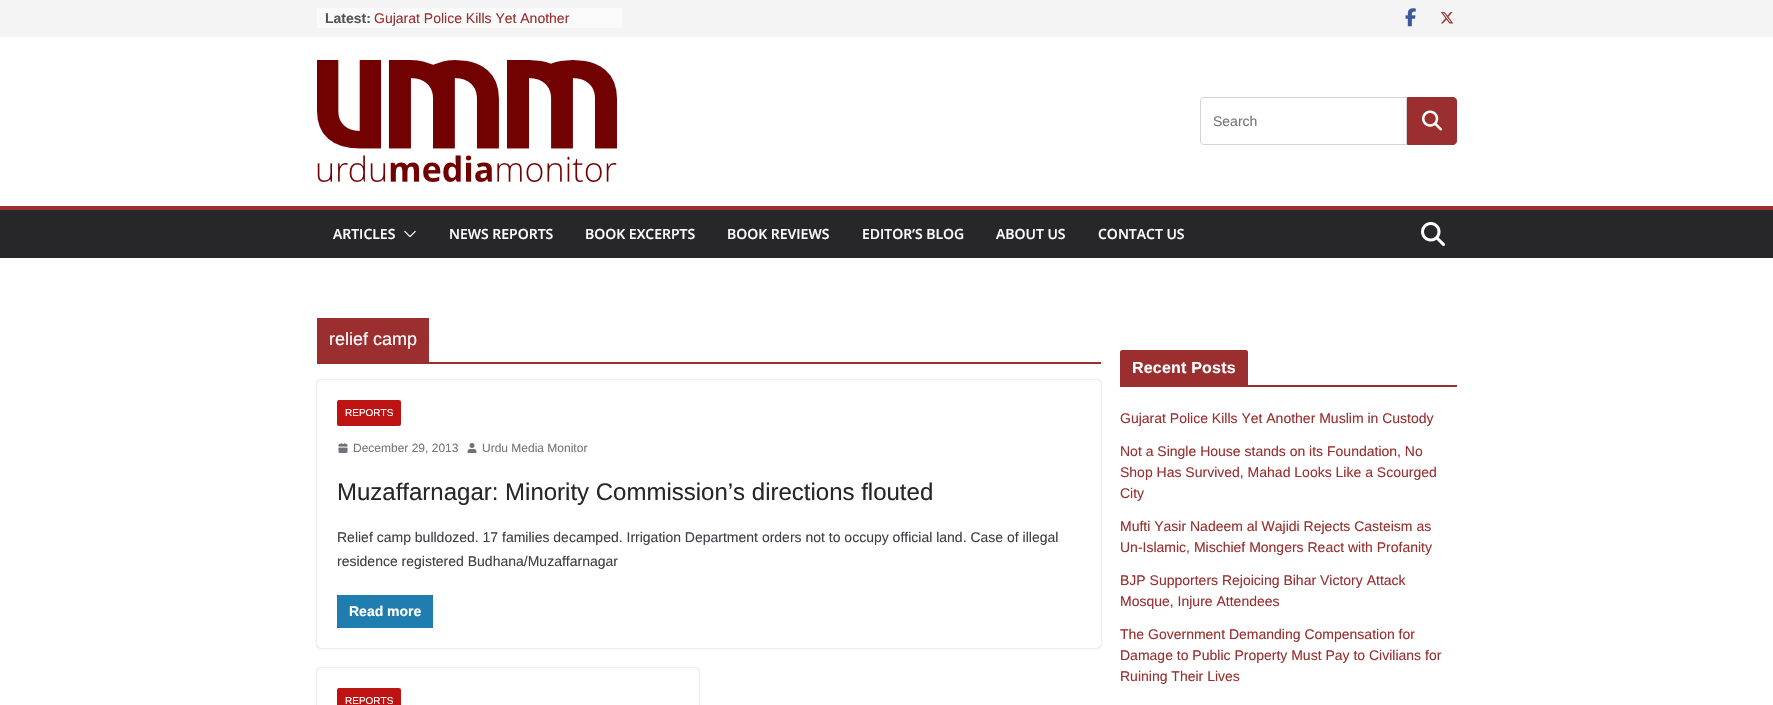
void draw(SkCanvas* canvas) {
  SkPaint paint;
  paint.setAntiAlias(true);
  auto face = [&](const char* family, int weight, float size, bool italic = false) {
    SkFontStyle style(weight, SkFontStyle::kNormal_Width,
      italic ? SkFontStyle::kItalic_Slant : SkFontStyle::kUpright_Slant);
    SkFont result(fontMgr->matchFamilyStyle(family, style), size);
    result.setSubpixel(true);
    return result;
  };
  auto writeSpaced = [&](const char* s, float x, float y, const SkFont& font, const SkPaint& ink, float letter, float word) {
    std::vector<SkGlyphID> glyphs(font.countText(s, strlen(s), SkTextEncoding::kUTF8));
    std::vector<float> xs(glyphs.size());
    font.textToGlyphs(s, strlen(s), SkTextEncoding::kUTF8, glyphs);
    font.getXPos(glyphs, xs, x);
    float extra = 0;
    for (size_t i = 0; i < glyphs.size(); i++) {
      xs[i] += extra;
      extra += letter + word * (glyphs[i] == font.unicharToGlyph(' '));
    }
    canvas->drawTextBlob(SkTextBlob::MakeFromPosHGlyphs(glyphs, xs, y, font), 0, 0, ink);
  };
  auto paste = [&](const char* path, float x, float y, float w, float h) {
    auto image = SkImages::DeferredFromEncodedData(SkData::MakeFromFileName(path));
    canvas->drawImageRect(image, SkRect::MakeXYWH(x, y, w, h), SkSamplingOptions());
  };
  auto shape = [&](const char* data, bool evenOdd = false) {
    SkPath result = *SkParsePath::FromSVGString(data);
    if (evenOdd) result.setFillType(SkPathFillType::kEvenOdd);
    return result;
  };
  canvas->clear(0xffffffff);
  paint.setColor(0x1a000000);
  paint.setMaskFilter(SkMaskFilter::MakeBlur(kNormal_SkBlurStyle, 1));
  canvas->drawRect(SkRect::MakeXYWH(0, 0, 1773, 36), paint);
  paint.setMaskFilter(nullptr);
  paint.setColor(0xfff4f4f5);
  canvas->drawRect(SkRect::MakeXYWH(0, 0, 1773, 36), paint);
  paint.setColor(0xfffafafa);
  canvas->drawRect(SkRect::MakeXYWH(317, 8, 305, 20), paint);
  paste("img/1.png", 1405, 8, 11, 19);
  paste("img/2.png", 1440, 12, 14, 12);
  paste("img/3.png", 317, 60, 300, 122);
  paint.setStroke(true);
  paint.setStrokeWidth(1);
  paint.setColor(0xffd4d4d8);
  canvas->drawPath(shape("M1204 97.5H1406.5V144.5H1204C1202 144.5 1200.5 143 1200.5 141V101C1200.5 99 1202 97.5 1204 97.5Z"), paint);
  paint.setStroke(false);
  paint.setColor(0xff9b2f2f);
  canvas->drawPath(shape("M1407.5 97.5H1453C1455 97.5 1456.5 99 1456.5 101V141C1456.5 143 1455 144.5 1453 144.5H1407.5Z"), paint);
  paint.setStroke(true);
  canvas->drawPath(shape("M1407.5 97.5H1453C1455 97.5 1456.5 99 1456.5 101V141C1456.5 143 1455 144.5 1453 144.5H1407.5Z"), paint);
  paste("img/4.png", 1422, 110, 20, 21);
  paint.setStroke(false);
  paint.setColor(0xff27272a);
  canvas->drawRect(SkRect::MakeXYWH(0, 210, 1773, 48), paint);
  paint.setColor(0xff9b2f2f);
  canvas->drawRect(SkRect::MakeXYWH(0, 206, 1773, 4), paint);
  paste("img/5.png", 404, 230, 12, 8);
  paste("img/6.png", 1421, 222, 24, 24);
  canvas->drawRect(SkRect::MakeXYWH(317, 362, 784, 2), paint);
  canvas->drawRect(SkRect::MakeXYWH(317, 318, 112, 44), paint);
  canvas->save();
  canvas->clipPath(shape("M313 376H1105V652H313ZM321 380H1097C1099 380 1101 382 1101 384V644C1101 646 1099 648 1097 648H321C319 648 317 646 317 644V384C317 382 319 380 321 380Z", true), true);
  paint.setColor(0x3d000000);
  paint.setMaskFilter(SkMaskFilter::MakeBlur(kNormal_SkBlurStyle, 1));
  canvas->drawRoundRect(SkRect::MakeXYWH(317, 380, 784, 268), 4, 4, paint);
  paint.setMaskFilter(nullptr);
  canvas->restore();
  paint.setColor(0xffbd1413);
  canvas->drawRoundRect(SkRect::MakeXYWH(337, 400, 64, 26), 2, 2, paint);
  paste("img/7.png", 338, 443, 10, 10);
  paste("img/8.png", 467, 443, 10, 10);
  paint.setColor(0xff9b2f2f);
  canvas->drawRect(SkRect::MakeXYWH(337, 595, 96, 33), paint);
  paint.setColor(0xff207daf);
  canvas->drawRoundRect(SkRect::MakeXYWH(337, 595, 96, 33), 2, 2, paint);
  canvas->save();
  canvas->clipPath(shape("M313 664H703V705H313ZM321 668H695C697 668 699 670 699 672V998C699 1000 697 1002 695 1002H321C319 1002 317 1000 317 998V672C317 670 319 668 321 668Z", true), true);
  paint.setColor(0x3d000000);
  paint.setMaskFilter(SkMaskFilter::MakeBlur(kNormal_SkBlurStyle, 1));
  canvas->drawRoundRect(SkRect::MakeXYWH(317, 668, 382, 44), 4, 4, paint);
  paint.setMaskFilter(nullptr);
  canvas->restore();
  paint.setColor(0xffbd1413);
  canvas->drawRoundRect(SkRect::MakeXYWH(337, 688, 64, 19), 2, 2, paint);
  paint.setColor(0xff9b2f2f);
  canvas->drawRect(SkRect::MakeXYWH(1120, 385, 337, 2), paint);
  canvas->drawPath(shape("M1122 350H1246C1247 350 1248 351 1248 352V385H1120V352C1120 351 1121 350 1122 350Z"), paint);
  auto f0 = face("Liberation Sans", 700, 14);
  paint.setColor(0xff555555);
  canvas->drawString("Latest:", 325, 23, f0, paint);
  auto f1 = face("Liberation Sans", 400, 14);
  paint.setColor(0xff9b2f2f);
  canvas->drawString("Gujarat Police Kills Yet Another", 374, 23, f1, paint);
  paint.setColor(0xff757575);
  canvas->drawString("Search", 1213, 126, f1, paint);
  auto f2 = face("Open Sans", 600, 14);
  paint.setColor(0xffffffff);
  {
    const struct { const char* s; float x, y; } items[] = {
      {"ARTICLES", 333, 239},
      {"NEWS REPORTS", 449, 239},
      {"BOOK EXCERPTS", 585, 239},
      {"BOOK REVIEWS", 727, 239},
      {"EDITOR’S BLOG", 862, 239},
      {"ABOUT US", 996, 239},
      {"CONTACT US", 1098, 239},
    };
    for (auto [s, x, y] : items) {
      canvas->drawString(s, x, y, f2, paint);
    }
  }
  auto f3 = face("Liberation Sans", 400, 18);
  canvas->drawString("relief camp", 329, 345, f3, paint);
  auto f4 = face("Liberation Sans", 400, 10);
  canvas->drawString("REPORTS", 345, 416, f4, paint);
  auto f5 = face("Liberation Sans", 400, 12);
  paint.setColor(0xff757575);
  canvas->drawString("December 29, 2013", 353, 452, f5, paint);
  canvas->drawString("Urdu Media Monitor", 482, 452, f5, paint);
  auto f6 = face("Liberation Sans", 400, 24);
  paint.setColor(0xff27272a);
  canvas->drawString("Muzaffarnagar: Minority Commission’s directions flouted", 337, 500, f6, paint);
  paint.setColor(0xff3f3f46);
  canvas->drawString("Relief camp bulldozed. 17 families decamped. Irrigation Department orders not to occupy official land. Case of illegal", 337, 542, f1, paint);
  canvas->drawString("residence registered Budhana/Muzaffarnagar", 337, 566, f1, paint);
  paint.setColor(0xffffffff);
  canvas->drawString("Read more", 349, 616, f0, paint);
  canvas->drawString("REPORTS", 345, 704, f4, paint);
  auto f7 = face("Liberation Sans", 700, 16);
  writeSpaced("Recent Posts", 1132, 373, f7, paint, 0.2f, 0);
  paint.setColor(0xff9b2f2f);
  {
    const struct { const char* s; float x, y; } items[] = {
      {"Gujarat Police Kills Yet Another Muslim in Custody", 1120, 423},
      {"Not a Single House stands on its Foundation, No", 1120, 456},
      {"Shop Has Survived, Mahad Looks Like a Scourged", 1120, 477},
      {"City", 1120, 498},
      {"Mufti Yasir Nadeem al Wajidi Rejects Casteism as", 1120, 531},
      {"Un-Islamic, Mischief Mongers React with Profanity", 1120, 552},
      {"BJP Supporters Rejoicing Bihar Victory Attack", 1120, 585},
      {"Mosque, Injure Attendees", 1120, 606},
      {"The Government Demanding Compensation for", 1120, 639},
      {"Damage to Public Property Must Pay to Civilians for", 1120, 660},
      {"Ruining Their Lives", 1120, 681},
    };
    for (auto [s, x, y] : items) {
      canvas->drawString(s, x, y, f1, paint);
    }
  }
}
